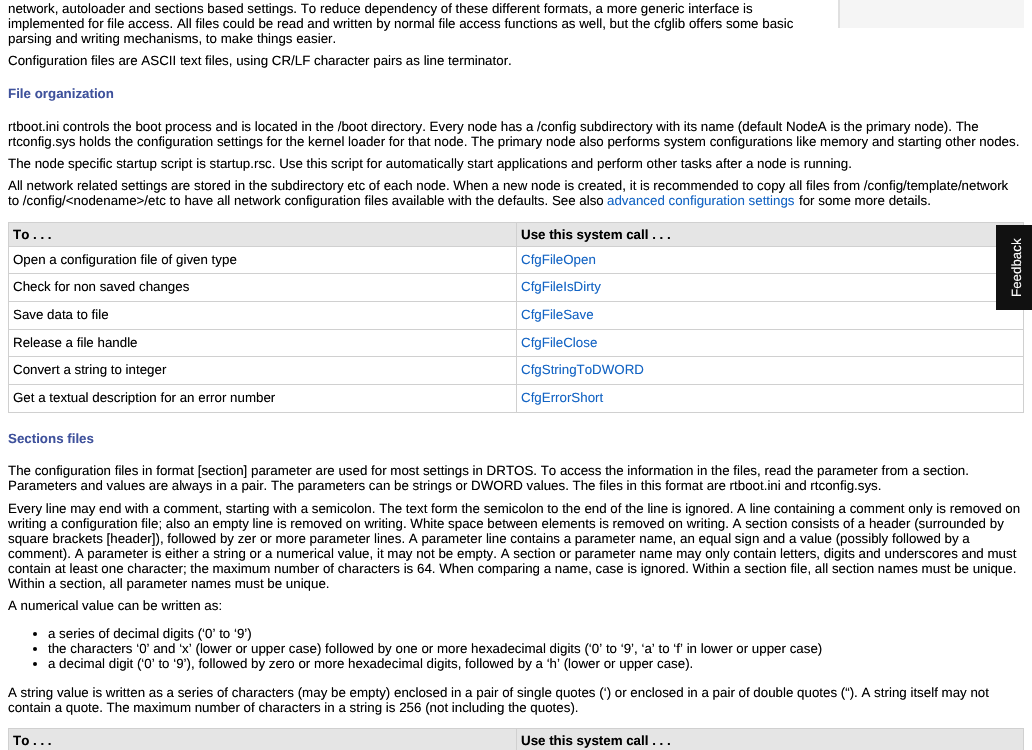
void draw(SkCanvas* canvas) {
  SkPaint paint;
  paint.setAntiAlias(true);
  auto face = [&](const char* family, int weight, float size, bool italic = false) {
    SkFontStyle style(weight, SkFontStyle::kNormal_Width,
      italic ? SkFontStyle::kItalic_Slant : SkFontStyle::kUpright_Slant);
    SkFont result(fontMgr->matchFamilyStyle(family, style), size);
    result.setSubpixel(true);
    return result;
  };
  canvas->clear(0xffffffff);
  {
    const struct { float x, y, w, h; SkColor color; } items[] = {
      {840, 0, 184, 28, 0xfff5f5f5},
      {838, 0, 2, 28, 0xffe0e0e0},
      {9, 223, 507, 23, 0xffe5e5e5},
      {516, 222, 508, 1, 0xffd0d0d0},
      {516, 246, 480, 1, 0xffd0d0d0},
      {516, 273, 480, 1, 0xffd0d0d0},
      {516, 301, 480, 1, 0xffd0d0d0},
      {516, 329, 508, 1, 0xffd0d0d0},
      {516, 356, 508, 1, 0xffd0d0d0},
      {516, 384, 508, 1, 0xffd0d0d0},
      {1023, 384, 1, 29, 0xffd0d0d0},
      {516, 412, 508, 1, 0xffd0d0d0},
      {516, 384, 1, 29, 0xffd0d0d0},
      {8, 384, 509, 1, 0xffd0d0d0},
      {516, 356, 1, 29, 0xffd0d0d0},
      {8, 356, 509, 1, 0xffd0d0d0},
      {516, 329, 1, 28, 0xffd0d0d0},
      {8, 329, 509, 1, 0xffd0d0d0},
      {516, 301, 1, 29, 0xffd0d0d0},
      {8, 301, 509, 1, 0xffd0d0d0},
      {516, 273, 1, 29, 0xffd0d0d0},
      {8, 273, 509, 1, 0xffd0d0d0},
      {516, 246, 1, 28, 0xffd0d0d0},
      {8, 246, 509, 1, 0xffd0d0d0},
      {516, 222, 1, 25, 0xffd0d0d0},
      {8, 222, 509, 1, 0xffd0d0d0},
      {8, 412, 509, 1, 0xffd0d0d0},
      {8, 384, 1, 29, 0xffd0d0d0},
      {8, 356, 1, 29, 0xffd0d0d0},
      {8, 329, 1, 28, 0xffd0d0d0},
      {8, 301, 1, 29, 0xffd0d0d0},
      {8, 273, 1, 29, 0xffd0d0d0},
      {8, 246, 1, 28, 0xffd0d0d0},
      {8, 222, 1, 25, 0xffd0d0d0},
      {517, 223, 506, 23, 0xffe5e5e5},
      {1023, 222, 1, 3, 0xffd0d0d0},
      {1023, 356, 1, 29, 0xffd0d0d0},
      {1023, 310, 1, 47, 0xffd0d0d0},
    };
    for (auto [x, y, w, h, color] : items) {
      paint.setColor(color);
      canvas->drawRect(SkRect::MakeXYWH(x, y, w, h), paint);
    }
  }
  paint.setColor(0xff000000);
  canvas->drawCircle(35, 634, 2, paint);
  canvas->drawCircle(35, 649, 2, paint);
  canvas->drawCircle(35, 664, 2, paint);
  {
    const struct { float x, y, w, h; SkColor color; } items[] = {
      {9, 729, 507, 21, 0xffe5e5e5},
      {516, 728, 508, 1, 0xffd0d0d0},
      {516, 728, 1, 22, 0xffd0d0d0},
      {8, 728, 509, 1, 0xffd0d0d0},
      {8, 728, 1, 22, 0xffd0d0d0},
      {517, 729, 506, 21, 0xffe5e5e5},
      {1023, 728, 1, 22, 0xffd0d0d0},
      {996, 225, 36, 85, 0xff111111},
    };
    for (auto [x, y, w, h, color] : items) {
      paint.setColor(color);
      canvas->drawRect(SkRect::MakeXYWH(x, y, w, h), paint);
    }
  }
  auto f0 = face("Liberation Sans", 400, 13.33f);
  paint.setColor(0xff000000);
  {
    const struct { const char* s; float x, y; } items[] = {
      {"network, autoloader and sections based settings. To reduce dependency of these different formats, a more generic interface is", 8, 13},
      {"implemented for file access. All files could be read and written by normal file access functions as well, but the cfglib offers some basic", 8, 28},
      {"parsing and writing mechanisms, to make things easier.", 8, 43},
      {"Configuration files are ASCII text files, using CR/LF character pairs as line terminator.", 8, 65},
    };
    for (auto [s, x, y] : items) {
      canvas->drawString(s, x, y, f0, paint);
    }
  }
  auto f1 = face("Liberation Sans", 700, 13.33f);
  paint.setColor(0xff3f529c);
  canvas->drawString("File organization", 8, 98, f1, paint);
  paint.setColor(0xff000000);
  {
    const struct { const char* s; float x, y; } items[] = {
      {"rtboot.ini controls the boot process and is located in the /boot directory. Every node has a /config subdirectory with its name (default NodeA is the primary node). The", 8, 131},
      {"rtconfig.sys holds the configuration settings for the kernel loader for that node. The primary node also performs system configurations like memory and starting other nodes.", 8, 146},
      {"The node specific startup script is startup.rsc. Use this script for automatically start applications and perform other tasks after a node is running.", 8, 168},
      {"All network related settings are stored in the subdirectory etc of each node. When a new node is created, it is recommended to copy all files from /config/template/network", 8, 190},
      {"to /config/<nodename>/etc to have all network configuration files available with the defaults. See also", 8, 205},
    };
    for (auto [s, x, y] : items) {
      canvas->drawString(s, x, y, f0, paint);
    }
  }
  paint.setColor(0xff1364c4);
  canvas->drawString("advanced configuration settings", 607, 205, f0, paint);
  paint.setColor(0xff000000);
  canvas->drawString("for some more details.", 799, 205, f0, paint);
  canvas->drawString("To . . .", 13, 239, f1, paint);
  canvas->drawString("Use this system call . . .", 521, 239, f1, paint);
  canvas->drawString("Open a configuration file of given type", 13, 264, f0, paint);
  paint.setColor(0xff1364c4);
  canvas->drawString("CfgFileOpen", 521, 264, f0, paint);
  paint.setColor(0xff000000);
  canvas->drawString("Check for non saved changes", 13, 291, f0, paint);
  paint.setColor(0xff1364c4);
  canvas->drawString("CfgFileIsDirty", 521, 291, f0, paint);
  paint.setColor(0xff000000);
  canvas->drawString("Save data to file", 13, 319, f0, paint);
  paint.setColor(0xff1364c4);
  canvas->drawString("CfgFileSave", 521, 319, f0, paint);
  paint.setColor(0xff000000);
  canvas->drawString("Release a file handle", 13, 347, f0, paint);
  paint.setColor(0xff1364c4);
  canvas->drawString("CfgFileClose", 521, 347, f0, paint);
  paint.setColor(0xff000000);
  canvas->drawString("Convert a string to integer", 13, 374, f0, paint);
  paint.setColor(0xff1364c4);
  canvas->drawString("CfgStringToDWORD", 521, 374, f0, paint);
  paint.setColor(0xff000000);
  canvas->drawString("Get a textual description for an error number", 13, 402, f0, paint);
  paint.setColor(0xff1364c4);
  canvas->drawString("CfgErrorShort", 521, 402, f0, paint);
  paint.setColor(0xff3f529c);
  canvas->drawString("Sections files", 8, 443, f1, paint);
  paint.setColor(0xff000000);
  {
    const struct { const char* s; float x, y; } items[] = {
      {"The configuration files in format [section] parameter are used for most settings in DRTOS. To access the information in the files, read the parameter from a section.", 8, 475},
      {"Parameters and values are always in a pair. The parameters can be strings or DWORD values. The files in this format are rtboot.ini and rtconfig.sys.", 8, 490},
      {"Every line may end with a comment, starting with a semicolon. The text form the semicolon to the end of the line is ignored. A line containing a comment only is removed on", 8, 513},
      {"writing a configuration file; also an empty line is removed on writing. White space between elements is removed on writing. A section consists of a header (surrounded by", 8, 528},
      {"square brackets [header]), followed by zer or more parameter lines. A parameter line contains a parameter name, an equal sign and a value (possibly followed by a", 8, 543},
      {"comment). A parameter is either a string or a numerical value, it may not be empty. A section or parameter name may only contain letters, digits and underscores and must", 8, 558},
      {"contain at least one character; the maximum number of characters is 64. When comparing a name, case is ignored. Within a section file, all section names must be unique.", 8, 573},
      {"Within a section, all parameter names must be unique.", 8, 588},
      {"A numerical value can be written as:", 8, 610},
      {"a series of decimal digits (‘0’ to ‘9’)", 48, 638},
      {"the characters ‘0’ and ‘x’ (lower or upper case) followed by one or more hexadecimal digits (‘0’ to ‘9’, ‘a’ to ‘f’ in lower or upper case)", 48, 653},
      {"a decimal digit (‘0’ to ‘9’), followed by zero or more hexadecimal digits, followed by a ‘h’ (lower or upper case).", 48, 668},
      {"A string value is written as a series of characters (may be empty) enclosed in a pair of single quotes (‘) or enclosed in a pair of double quotes (“). A string itself may not", 8, 697},
      {"contain a quote. The maximum number of characters in a string is 256 (not including the quotes).", 8, 712},
    };
    for (auto [s, x, y] : items) {
      canvas->drawString(s, x, y, f0, paint);
    }
  }
  canvas->drawString("To . . .", 13, 745, f1, paint);
  canvas->drawString("Use this system call . . .", 521, 745, f1, paint);
  paint.setColor(0xffffffff);
  canvas->save();
  canvas->rotate(-90, 1021, 297);
  canvas->drawString("Feedback", 1021, 297, f0, paint);
  canvas->restore();
}
